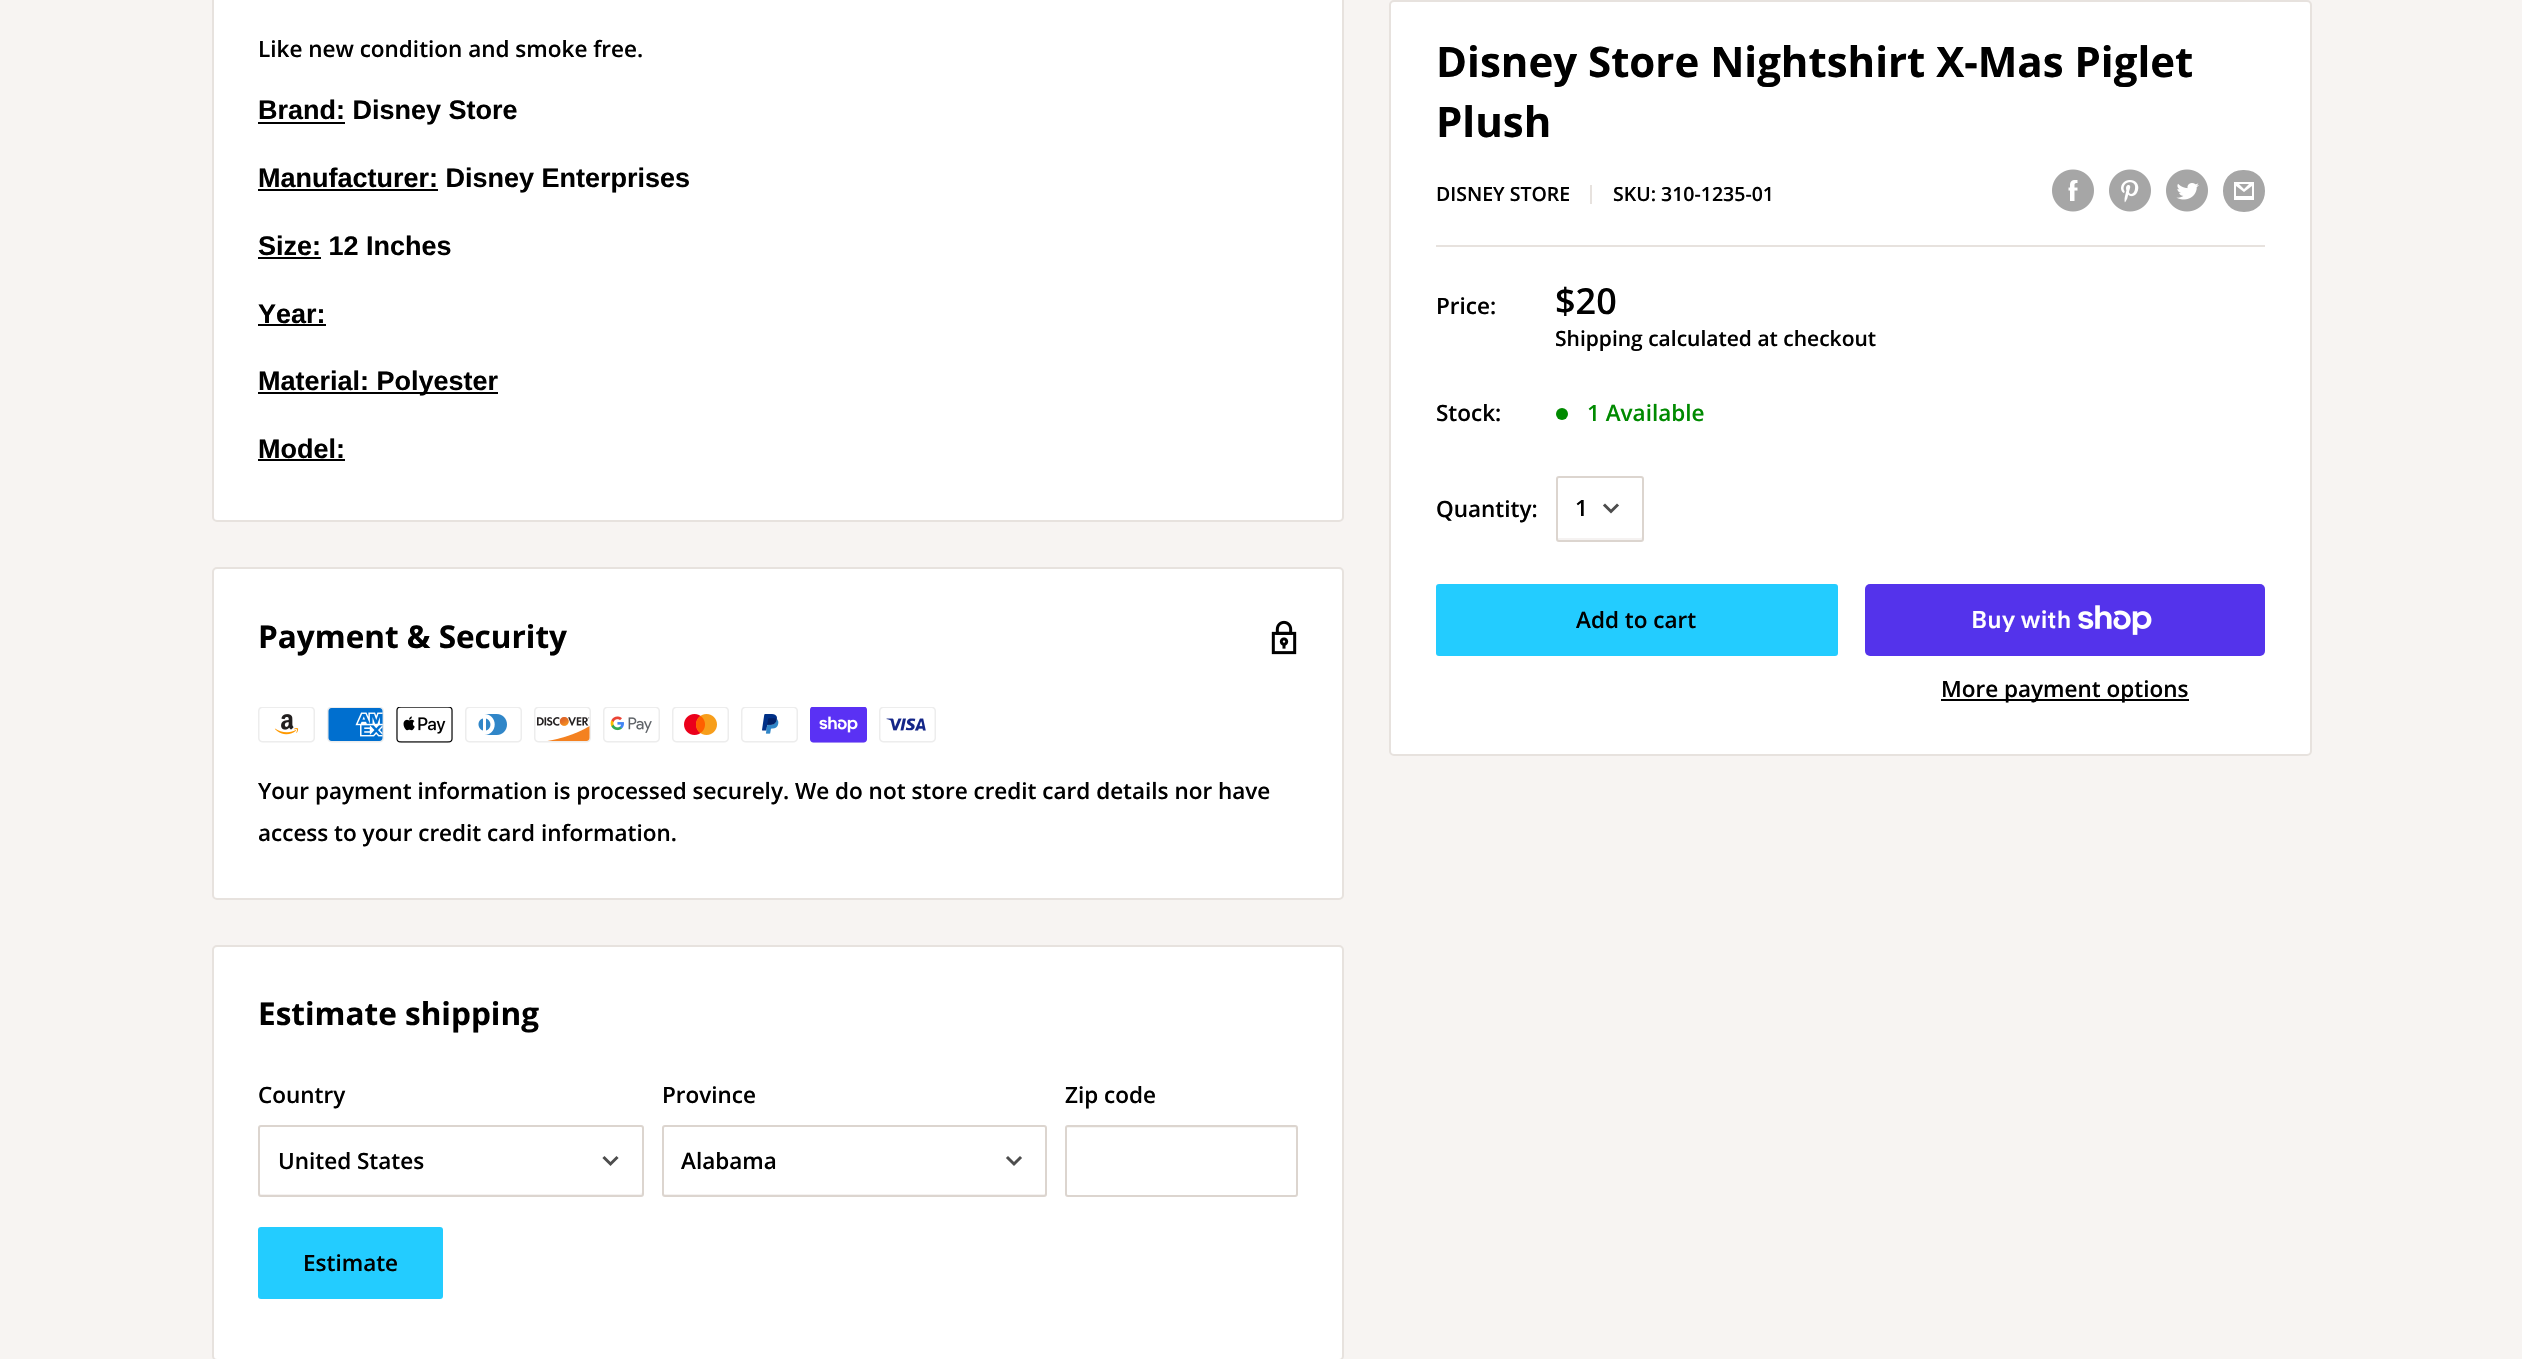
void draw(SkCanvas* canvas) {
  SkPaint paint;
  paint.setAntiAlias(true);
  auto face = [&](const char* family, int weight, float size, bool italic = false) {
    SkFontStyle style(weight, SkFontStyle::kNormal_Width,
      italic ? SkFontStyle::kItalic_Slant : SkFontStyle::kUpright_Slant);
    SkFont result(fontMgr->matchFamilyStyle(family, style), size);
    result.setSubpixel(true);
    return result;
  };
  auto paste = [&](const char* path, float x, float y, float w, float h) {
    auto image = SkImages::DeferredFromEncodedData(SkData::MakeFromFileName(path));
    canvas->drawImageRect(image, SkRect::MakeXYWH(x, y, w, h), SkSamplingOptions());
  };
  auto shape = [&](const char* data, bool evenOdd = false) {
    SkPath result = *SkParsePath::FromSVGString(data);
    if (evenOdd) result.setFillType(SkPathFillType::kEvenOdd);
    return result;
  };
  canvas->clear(0xfff7f4f2);
  paint.setColor(0xffffffff);
  canvas->drawRoundRect(SkRect::MakeXYWH(213, -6, 1130, 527), 4, 4, paint);
  paint.setStroke(true);
  paint.setStrokeWidth(2);
  paint.setColor(0xffe7e2de);
  canvas->drawRoundRect(SkRect::MakeXYWH(213, -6, 1130, 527), 4, 4, paint);
  paint.setStroke(false);
  {
    const struct { float x, y, w, h; SkColor color; } items[] = {
      {258, 122, 87, 2, 0xff000000},
      {258, 189, 180, 2, 0xff000000},
      {258, 257, 63, 2, 0xff000000},
      {258, 324, 68, 2, 0xff000000},
      {258, 392, 240, 2, 0xff000000},
      {258, 459, 87, 2, 0xff000000},
    };
    for (auto [x, y, w, h, color] : items) {
      paint.setColor(color);
      canvas->drawRect(SkRect::MakeXYWH(x, y, w, h), paint);
    }
  }
  paint.setColor(0xffffffff);
  canvas->drawRoundRect(SkRect::MakeXYWH(1390, 1, 921, 754), 4, 4, paint);
  paint.setStroke(true);
  paint.setColor(0xffe7e2de);
  canvas->drawRoundRect(SkRect::MakeXYWH(1390, 1, 921, 754), 4, 4, paint);
  paint.setStroke(false);
  canvas->drawRect(SkRect::MakeXYWH(1590, 185, 2, 19), paint);
  paste("img/1.png", 2052, 169, 42, 43);
  paste("img/2.png", 2109, 169, 42, 43);
  paste("img/3.png", 2166, 169, 42, 43);
  paint.setColor(0xffa6a6a6);
  canvas->drawPath(shape("M2244 212C2216 212 2216 169 2244 170C2272 170 2272 212 2244 212ZM2239 184H2249L2244 189ZM2252 186V196H2236V186L2244 192ZM2254 182H2234V200H2254Z"), paint);
  paint.setColor(0xffe7e2de);
  canvas->drawRect(SkRect::MakeXYWH(1436, 245, 829, 2), paint);
  paint.setColor(0xff008a00);
  canvas->drawCircle(1562, 414, 6, paint);
  paint.setColor(0xfff5f2f1);
  canvas->drawPath(shape("M1557 537C1557 544 1567 540 1572 540H1628C1649 540 1643 543 1643 518V478L1642 477V537L1641 538H1558Z"), paint);
  paint.setStroke(true);
  paint.setColor(0xffdcd5cf);
  canvas->drawRoundRect(SkRect::MakeXYWH(1557, 477, 86, 64), 2, 2, paint);
  paint.setStrokeWidth(3);
  paint.setStrokeCap(SkPaint::kSquare_Cap);
  paint.setColor(0xff4d4d4d);
  canvas->drawPath(shape("M1617 505.5L1611 511.5L1605 505.5"), paint);
  paint.setStroke(false);
  paint.setColor(0xff23ccff);
  canvas->drawRoundRect(SkRect::MakeXYWH(1436, 584, 402, 72), 3, 3, paint);
  paint.setColor(0xff5433eb);
  canvas->drawRoundRect(SkRect::MakeXYWH(1865, 584, 400, 72), 5, 5, paint);
  paste("img/4.png", 2078, 605, 74, 30);
  paint.setColor(0xff000000);
  canvas->drawRect(SkRect::MakeXYWH(1941, 699, 248, 2), paint);
  paint.setColor(0xffffffff);
  canvas->drawRoundRect(SkRect::MakeXYWH(213, 568, 1130, 331), 4, 4, paint);
  paint.setStroke(true);
  paint.setStrokeWidth(2);
  paint.setStrokeCap(SkPaint::kButt_Cap);
  paint.setColor(0xffe7e2de);
  canvas->drawRoundRect(SkRect::MakeXYWH(213, 568, 1130, 331), 4, 4, paint);
  paste("img/5.png", 1271, 620, 26, 35);
  paste("img/6.png", 258, 707, 57, 36);
  paste("img/7.png", 327, 707, 57, 36);
  paste("img/8.png", 396, 707, 57, 36);
  paste("img/9.png", 465, 707, 57, 36);
  paste("img/10.png", 534, 707, 57, 36);
  paste("img/11.png", 603, 707, 57, 36);
  paste("img/12.png", 672, 707, 57, 36);
  paste("img/13.png", 741, 707, 57, 36);
  paste("img/14.png", 810, 707, 57, 36);
  paste("img/15.png", 879, 707, 57, 36);
  paint.setStroke(false);
  paint.setColor(0xffffffff);
  canvas->drawRoundRect(SkRect::MakeXYWH(213, 946, 1130, 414), 4, 4, paint);
  paint.setStroke(true);
  paint.setColor(0xffe7e2de);
  canvas->drawRoundRect(SkRect::MakeXYWH(213, 946, 1130, 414), 4, 4, paint);
  paint.setStroke(false);
  paint.setColor(0xfff5f2f1);
  canvas->drawPath(shape("M260 1192V1194C260 1195 261 1196 262 1196H640C641 1196 642 1195 642 1194V1192C642 1193 641 1194 640 1194H261C260 1194 260 1193 260 1192Z"), paint);
  paint.setStroke(true);
  paint.setColor(0xffdcd5cf);
  canvas->drawRoundRect(SkRect::MakeXYWH(259, 1126, 384, 70), 2, 2, paint);
  paint.setStrokeWidth(3);
  paint.setStrokeCap(SkPaint::kSquare_Cap);
  paint.setColor(0xff4d4d4d);
  canvas->drawPath(shape("M616.5 1158L610.5 1164L604.5 1158"), paint);
  paint.setStroke(false);
  paint.setColor(0xfff5f2f1);
  canvas->drawPath(shape("M663 1192V1194C663 1195 664 1196 664 1196H1044C1045 1196 1046 1195 1046 1194V1192C1046 1193 1045 1194 1044 1194H664Z"), paint);
  paint.setStroke(true);
  paint.setStrokeWidth(2);
  paint.setStrokeCap(SkPaint::kButt_Cap);
  paint.setColor(0xffdcd5cf);
  canvas->drawRoundRect(SkRect::MakeXYWH(663, 1126, 383, 70), 2, 2, paint);
  paint.setStrokeWidth(3);
  paint.setStrokeCap(SkPaint::kSquare_Cap);
  paint.setColor(0xff4d4d4d);
  canvas->drawPath(shape("M1020 1158L1014 1164L1008 1158"), paint);
  paint.setStroke(false);
  paint.setColor(0xfff6f5f3);
  canvas->drawPath(shape("M1068 1128H1294C1295 1128 1296 1129 1296 1130V1128C1296 1128 1295 1127 1294 1127H1068C1068 1127 1067 1128 1067 1128Z"), paint);
  paint.setStroke(true);
  paint.setStrokeWidth(2);
  paint.setStrokeCap(SkPaint::kButt_Cap);
  paint.setColor(0xffdcd5cf);
  canvas->drawRoundRect(SkRect::MakeXYWH(1066, 1126, 231, 70), 2, 2, paint);
  paint.setStroke(false);
  paint.setColor(0xff23ccff);
  canvas->drawRoundRect(SkRect::MakeXYWH(258, 1227, 185, 72), 3, 3, paint);
  auto f0 = face("Open Sans", 600, 22.5f);
  paint.setColor(0xff000000);
  canvas->drawString("Like new condition and smoke free.", 258, 57, f0, paint);
  auto f1 = face("Liberation Sans", 700, 27);
  {
    const struct { const char* s; float x, y; } items[] = {
      {"Brand: Disney Store", 258, 119},
      {"Manufacturer: Disney Enterprises", 258, 187},
      {"Size: 12 Inches", 258, 255},
      {"Year:", 258, 323},
      {"Material: Polyester", 258, 390},
      {"Model:", 258, 458},
    };
    for (auto [s, x, y] : items) {
      canvas->drawString(s, x, y, f1, paint);
    }
  }
  auto f2 = face("Open Sans", 700, 42);
  canvas->drawString("Disney Store Nightshirt X-Mas Piglet", 1436, 77, f2, paint);
  canvas->drawString("Plush", 1436, 137, f2, paint);
  auto f3 = face("Open Sans", 600, 19.5f);
  canvas->drawString("DISNEY STORE", 1436, 201, f3, paint);
  canvas->drawString("SKU: 310-1235-01", 1613, 201, f3, paint);
  canvas->drawString("Price:", 1436, 314, f0, paint);
  auto f4 = face("Open Sans", 600, 36);
  canvas->drawString("$20", 1555, 314, f4, paint);
  auto f5 = face("Open Sans", 600, 21);
  canvas->drawString("Shipping calculated at checkout", 1555, 346, f5, paint);
  canvas->drawString("Stock:", 1436, 421, f0, paint);
  paint.setColor(0xff008a00);
  canvas->drawString("1 Available", 1587, 421, f0, paint);
  paint.setColor(0xff000000);
  {
    const struct { const char* s; float x, y; } items[] = {
      {"Quantity:", 1436, 517},
      {"1", 1575, 516},
      {"Add to cart", 1576, 628},
    };
    for (auto [s, x, y] : items) {
      canvas->drawString(s, x, y, f0, paint);
    }
  }
  auto f6 = face("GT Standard", 600, 24);
  paint.setColor(0xffffffff);
  canvas->drawString("Buy with", 1971, 628, f6, paint);
  paint.setColor(0xff000000);
  canvas->drawString("More payment options", 1941, 697, f0, paint);
  auto f7 = face("Open Sans", 700, 31.5f);
  canvas->drawString("Payment & Security", 258, 648, f7, paint);
  canvas->drawString("Your payment information is processed securely. We do not store credit card details nor have", 258, 799, f0, paint);
  canvas->drawString("access to your credit card information.", 258, 841, f0, paint);
  canvas->drawString("Estimate shipping", 258, 1025, f7, paint);
  {
    const struct { const char* s; float x, y; } items[] = {
      {"Country", 258, 1103},
      {"United States", 278, 1169},
      {"Province", 662, 1103},
      {"Alabama", 681, 1169},
      {"Zip code", 1065, 1103},
      {"Estimate", 303, 1271},
    };
    for (auto [s, x, y] : items) {
      canvas->drawString(s, x, y, f0, paint);
    }
  }
}
